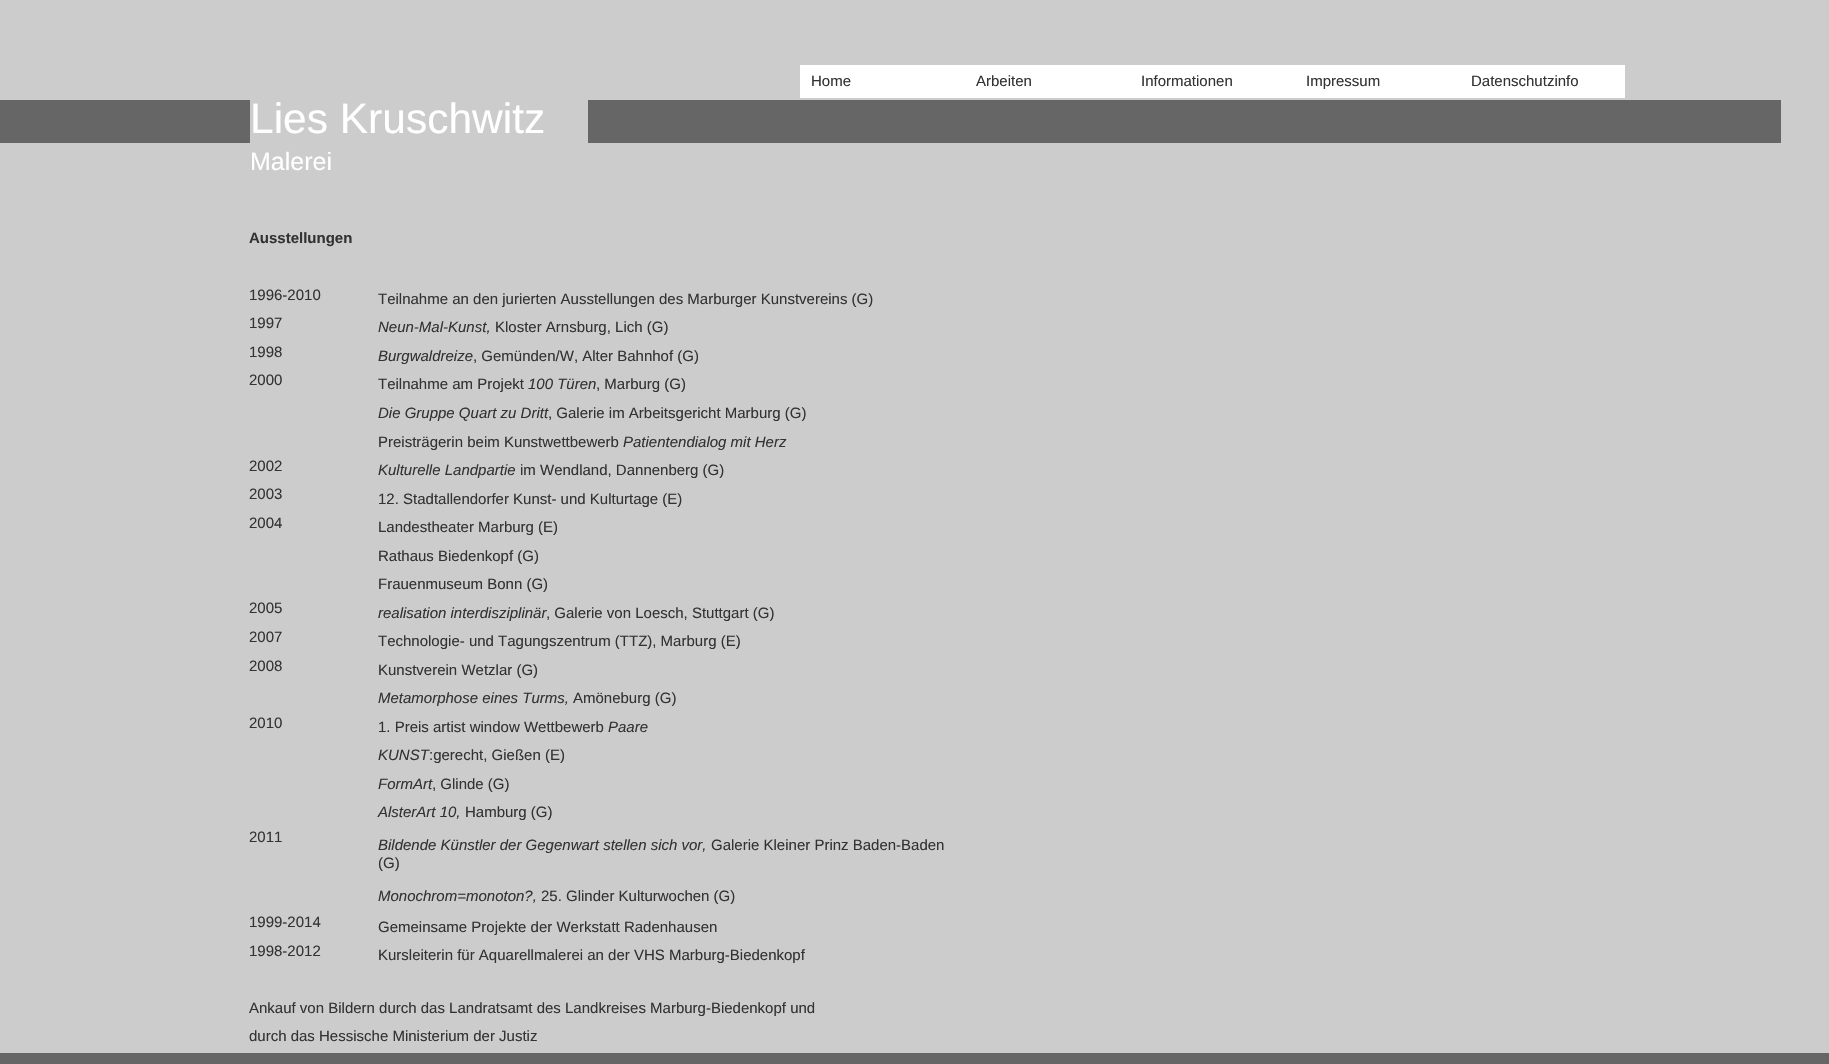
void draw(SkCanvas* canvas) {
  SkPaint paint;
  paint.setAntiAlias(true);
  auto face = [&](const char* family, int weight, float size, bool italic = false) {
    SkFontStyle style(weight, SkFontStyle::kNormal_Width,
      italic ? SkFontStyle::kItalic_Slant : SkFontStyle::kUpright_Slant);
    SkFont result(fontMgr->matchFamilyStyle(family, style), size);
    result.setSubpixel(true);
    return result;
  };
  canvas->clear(0xffcccccc);
  {
    const struct { float x, y, w, h; SkColor color; } items[] = {
      {800, 65, 825, 33, 0xffffffff},
      {0, 100, 1781, 43, 0xff666666},
      {250, 100, 338, 43, 0xffcccccc},
      {0, 1053, 1829, 11, 0xff666666},
    };
    for (auto [x, y, w, h, color] : items) {
      paint.setColor(color);
      canvas->drawRect(SkRect::MakeXYWH(x, y, w, h), paint);
    }
  }
  auto f0 = face("Liberation Sans", 400, 15);
  paint.setColor(0xff333333);
  {
    const struct { const char* s; float x, y; } items[] = {
      {"Home", 811, 86},
      {"Arbeiten", 976, 86},
      {"Informationen", 1141, 86},
      {"Impressum", 1306, 86},
      {"Datenschutzinfo", 1471, 86},
    };
    for (auto [s, x, y] : items) {
      canvas->drawString(s, x, y, f0, paint);
    }
  }
  auto f1 = face("Liberation Sans", 400, 42.5f);
  paint.setColor(0xffffffff);
  canvas->drawString("Lies Kruschwitz", 250, 133, f1, paint);
  auto f2 = face("Liberation Sans", 400, 25);
  canvas->drawString("Malerei", 250, 170, f2, paint);
  auto f3 = face("Liberation Sans", 700, 15);
  paint.setColor(0xff333333);
  canvas->drawString("Ausstellungen", 249, 243, f3, paint);
  {
    const struct { const char* s; float x, y; } items[] = {
      {"1996-2010", 249, 300},
      {"Teilnahme an den jurierten Ausstellungen des Marburger Kunstvereins (G)", 378, 304},
      {"1997", 249, 328},
    };
    for (auto [s, x, y] : items) {
      canvas->drawString(s, x, y, f0, paint);
    }
  }
  auto f4 = face("Liberation Sans", 400, 15, true);
  canvas->drawString("Neun-Mal-Kunst,", 378, 332, f4, paint);
  canvas->drawString("Kloster Arnsburg, Lich (G)", 495, 332, f0, paint);
  canvas->drawString("1998", 249, 357, f0, paint);
  canvas->drawString("Burgwaldreize", 378, 361, f4, paint);
  {
    const struct { const char* s; float x, y; } items[] = {
      {", Gemünden/W, Alter Bahnhof (G)", 473, 361},
      {"2000", 249, 385},
      {"Teilnahme am Projekt", 378, 389},
    };
    for (auto [s, x, y] : items) {
      canvas->drawString(s, x, y, f0, paint);
    }
  }
  canvas->drawString("100 Türen", 528, 389, f4, paint);
  canvas->drawString(", Marburg (G)", 596, 389, f0, paint);
  canvas->drawString("Die Gruppe Quart zu Dritt", 378, 418, f4, paint);
  canvas->drawString(", Galerie im Arbeitsgericht Marburg (G)", 548, 418, f0, paint);
  canvas->drawString("Preisträgerin beim Kunstwettbewerb", 378, 447, f0, paint);
  canvas->drawString("Patientendialog mit Herz", 623, 447, f4, paint);
  canvas->drawString("2002", 249, 471, f0, paint);
  canvas->drawString("Kulturelle Landpartie", 378, 475, f4, paint);
  {
    const struct { const char* s; float x, y; } items[] = {
      {"im Wendland, Dannenberg (G)", 520, 475},
      {"2003", 249, 499},
      {"12. Stadtallendorfer Kunst- und Kulturtage (E)", 378, 504},
      {"2004", 249, 528},
      {"Landestheater Marburg (E)", 378, 532},
      {"Rathaus Biedenkopf (G)", 378, 561},
      {"Frauenmuseum Bonn (G)", 378, 589},
      {"2005", 249, 613},
    };
    for (auto [s, x, y] : items) {
      canvas->drawString(s, x, y, f0, paint);
    }
  }
  canvas->drawString("realisation interdisziplinär", 378, 618, f4, paint);
  {
    const struct { const char* s; float x, y; } items[] = {
      {", Galerie von Loesch, Stuttgart (G)", 546, 618},
      {"2007", 249, 642},
      {"Technologie- und Tagungszentrum (TTZ), Marburg (E)", 378, 646},
      {"2008", 249, 671},
      {"Kunstverein Wetzlar (G)", 378, 675},
    };
    for (auto [s, x, y] : items) {
      canvas->drawString(s, x, y, f0, paint);
    }
  }
  canvas->drawString("Metamorphose eines Turms,", 378, 703, f4, paint);
  {
    const struct { const char* s; float x, y; } items[] = {
      {"Amöneburg (G)", 573, 703},
      {"2010", 249, 728},
      {"1. Preis artist window Wettbewerb", 378, 732},
    };
    for (auto [s, x, y] : items) {
      canvas->drawString(s, x, y, f0, paint);
    }
  }
  canvas->drawString("Paare", 608, 732, f4, paint);
  canvas->drawString("KUNST", 378, 760, f4, paint);
  canvas->drawString(":gerecht, Gießen (E)", 429, 760, f0, paint);
  canvas->drawString("FormArt", 378, 789, f4, paint);
  canvas->drawString(", Glinde (G)", 432, 789, f0, paint);
  canvas->drawString("AlsterArt 10,", 378, 817, f4, paint);
  canvas->drawString("Hamburg (G)", 465, 817, f0, paint);
  canvas->drawString("2011", 249, 842, f0, paint);
  canvas->drawString("Bildende Künstler der Gegenwart stellen sich vor,", 378, 850, f4, paint);
  canvas->drawString("Galerie Kleiner Prinz Baden-Baden", 711, 850, f0, paint);
  canvas->drawString("(G)", 378, 868, f0, paint);
  canvas->drawString("Monochrom=monoton?,", 378, 901, f4, paint);
  {
    const struct { const char* s; float x, y; } items[] = {
      {"25. Glinder Kulturwochen (G)", 541, 901},
      {"1999-2014", 249, 927},
      {"Gemeinsame Projekte der Werkstatt Radenhausen", 378, 932},
      {"1998-2012", 249, 956},
      {"Kursleiterin für Aquarellmalerei an der VHS Marburg-Biedenkopf", 378, 960},
      {"Ankauf von Bildern durch das Landratsamt des Landkreises Marburg-Biedenkopf und", 249, 1013},
      {"durch das Hessische Ministerium der Justiz", 249, 1041},
    };
    for (auto [s, x, y] : items) {
      canvas->drawString(s, x, y, f0, paint);
    }
  }
}
